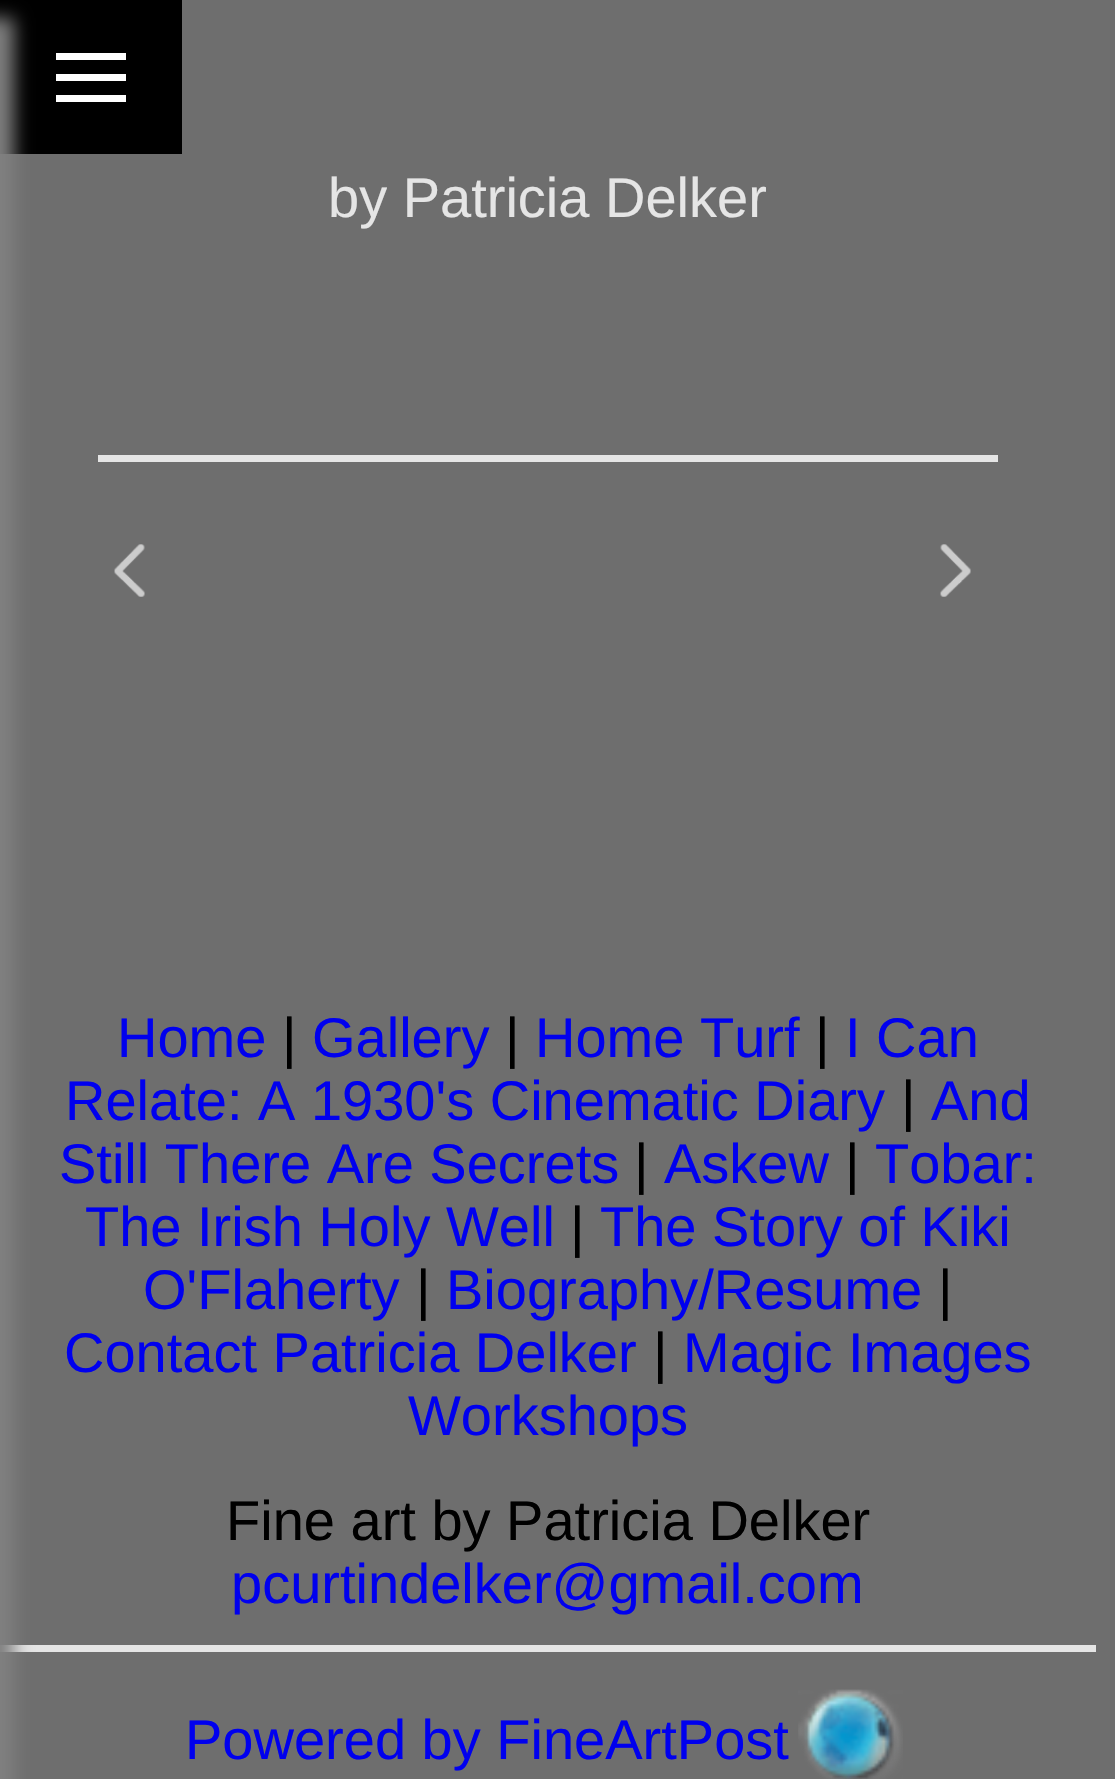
void draw(SkCanvas* canvas) {
  SkPaint paint;
  paint.setAntiAlias(true);
  auto face = [&](const char* family, int weight, float size, bool italic = false) {
    SkFontStyle style(weight, SkFontStyle::kNormal_Width,
      italic ? SkFontStyle::kItalic_Slant : SkFontStyle::kUpright_Slant);
    SkFont result(fontMgr->matchFamilyStyle(family, style), size);
    result.setSubpixel(true);
    return result;
  };
  auto paste = [&](const char* path, float x, float y, float w, float h) {
    auto image = SkImages::DeferredFromEncodedData(SkData::MakeFromFileName(path));
    canvas->drawImageRect(image, SkRect::MakeXYWH(x, y, w, h), SkSamplingOptions());
  };
  canvas->clear(0xff6e6e6e);
  {
    const struct { float x, y, w, h; SkColor color; } items[] = {
      {0, 0, 182, 154, 0xff000000},
      {56, 74, 70, 7, 0xffffffff},
      {56, 53, 70, 7, 0xffffffff},
      {56, 95, 70, 7, 0xffffffff},
      {0, 1645, 1096, 7, 0xffe5e5e5},
    };
    for (auto [x, y, w, h, color] : items) {
      paint.setColor(color);
      canvas->drawRect(SkRect::MakeXYWH(x, y, w, h), paint);
    }
  }
  paint.setColor(0xff808080);
  paint.setMaskFilter(SkMaskFilter::MakeBlur(kNormal_SkBlurStyle, 9));
  canvas->drawRect(SkRect::MakeXYWH(-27, 18, 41, 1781), paint);
  paint.setMaskFilter(nullptr);
  paint.setColor(0xffe5e5e5);
  canvas->drawRect(SkRect::MakeXYWH(98, 455, 900, 7), paint);
  paste("img/1.png", 114, 544, 31, 53);
  paste("img/2.png", 940, 544, 31, 53);
  paste("img/3.png", 798, 1689, 105, 90);
  auto f0 = face("Liberation Sans", 400, 56);
  canvas->drawString("by Patricia Delker", 328, 217, f0, paint);
  paint.setColor(0xff0000ee);
  canvas->drawString("Home", 117, 1057, f0, paint);
  paint.setColor(0xff000000);
  canvas->drawString("|", 282, 1057, f0, paint);
  paint.setColor(0xff0000ee);
  canvas->drawString("Gallery", 312, 1057, f0, paint);
  paint.setColor(0xff000000);
  canvas->drawString("|", 505, 1057, f0, paint);
  paint.setColor(0xff0000ee);
  canvas->drawString("Home Turf", 535, 1057, f0, paint);
  paint.setColor(0xff000000);
  canvas->drawString("|", 815, 1057, f0, paint);
  paint.setColor(0xff0000ee);
  canvas->drawString("I Can", 845, 1057, f0, paint);
  canvas->drawString("Relate: A 1930's Cinematic Diary", 65, 1120, f0, paint);
  paint.setColor(0xff000000);
  canvas->drawString("|", 901, 1120, f0, paint);
  paint.setColor(0xff0000ee);
  canvas->drawString("And", 931, 1120, f0, paint);
  canvas->drawString("Still There Are Secrets", 59, 1183, f0, paint);
  paint.setColor(0xff000000);
  canvas->drawString("|", 634, 1183, f0, paint);
  paint.setColor(0xff0000ee);
  canvas->drawString("Askew", 664, 1183, f0, paint);
  paint.setColor(0xff000000);
  canvas->drawString("|", 845, 1183, f0, paint);
  paint.setColor(0xff0000ee);
  canvas->drawString("Tobar:", 875, 1183, f0, paint);
  canvas->drawString("The Irish Holy Well", 85, 1246, f0, paint);
  paint.setColor(0xff000000);
  canvas->drawString("|", 570, 1246, f0, paint);
  paint.setColor(0xff0000ee);
  canvas->drawString("The Story of Kiki", 600, 1246, f0, paint);
  canvas->drawString("O'Flaherty", 143, 1309, f0, paint);
  paint.setColor(0xff000000);
  canvas->drawString("|", 416, 1309, f0, paint);
  paint.setColor(0xff0000ee);
  canvas->drawString("Biography/Resume", 446, 1309, f0, paint);
  paint.setColor(0xff000000);
  canvas->drawString("|", 938, 1309, f0, paint);
  paint.setColor(0xff0000ee);
  canvas->drawString("Contact Patricia Delker", 64, 1372, f0, paint);
  paint.setColor(0xff000000);
  canvas->drawString("|", 653, 1372, f0, paint);
  paint.setColor(0xff0000ee);
  canvas->drawString("Magic Images", 683, 1372, f0, paint);
  canvas->drawString("Workshops", 408, 1435, f0, paint);
  paint.setColor(0xff000000);
  canvas->drawString("Fine art by Patricia Delker", 226, 1540, f0, paint);
  paint.setColor(0xff0000ee);
  canvas->drawString("pcurtindelker@gmail.com", 231, 1603, f0, paint);
  canvas->drawString("Powered by FineArtPost", 185, 1759, f0, paint);
}
